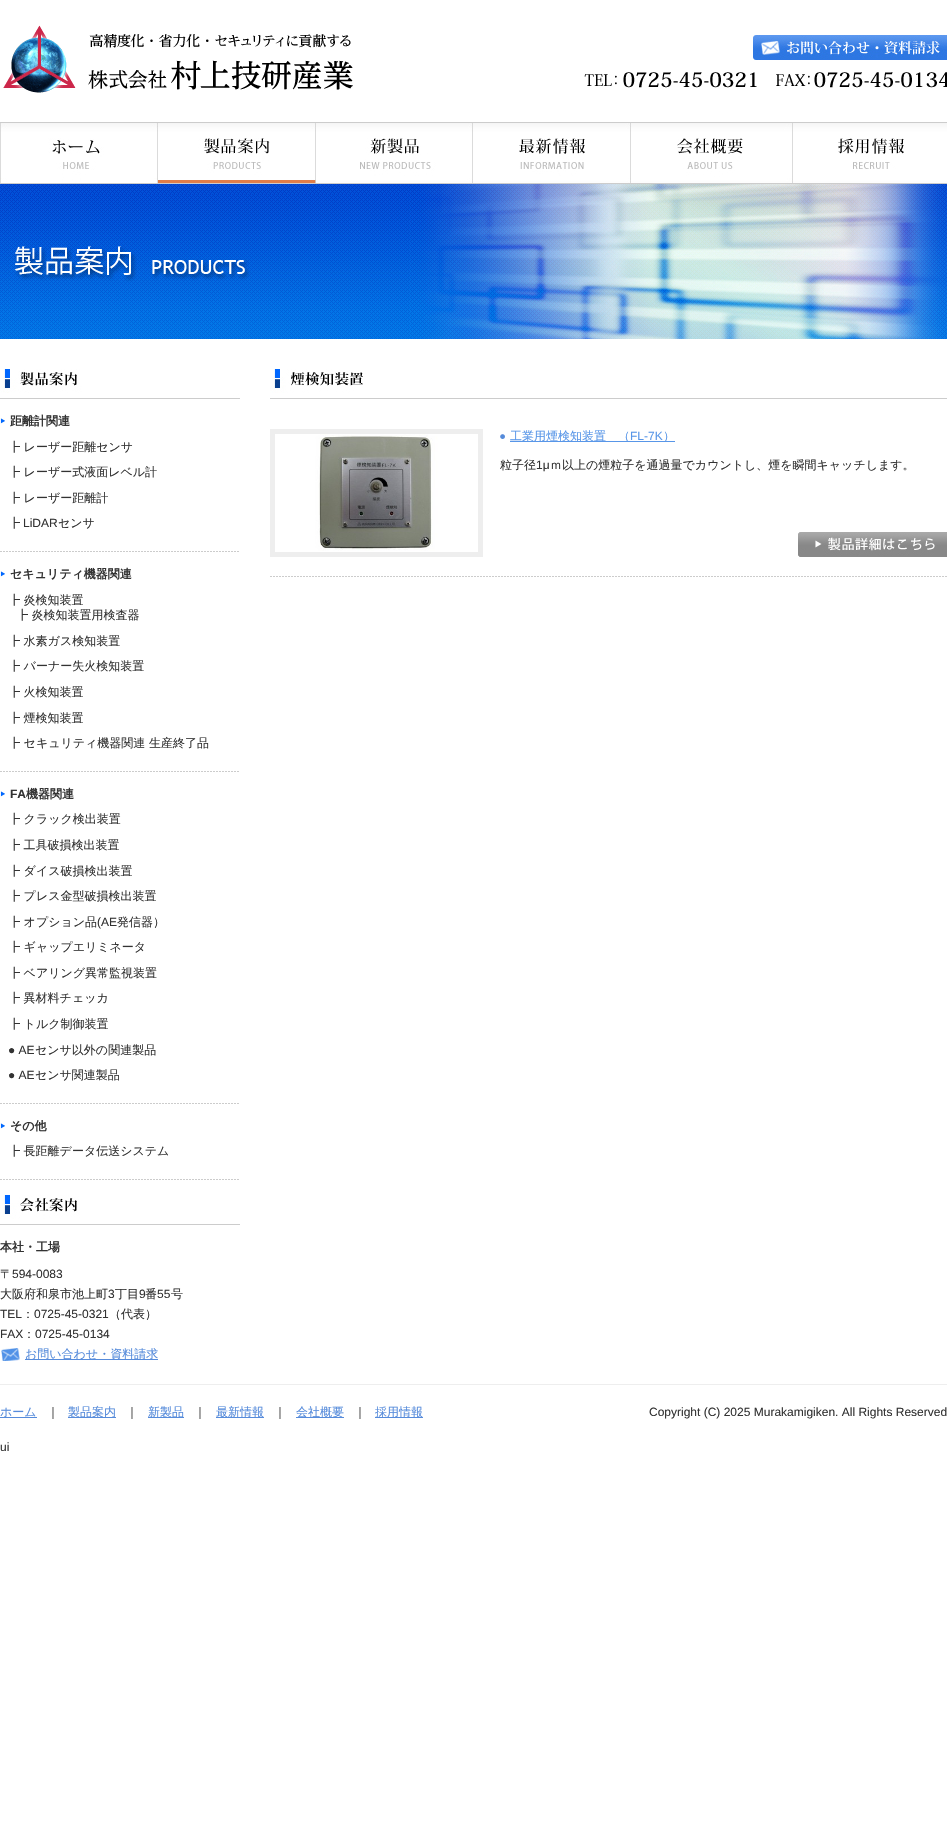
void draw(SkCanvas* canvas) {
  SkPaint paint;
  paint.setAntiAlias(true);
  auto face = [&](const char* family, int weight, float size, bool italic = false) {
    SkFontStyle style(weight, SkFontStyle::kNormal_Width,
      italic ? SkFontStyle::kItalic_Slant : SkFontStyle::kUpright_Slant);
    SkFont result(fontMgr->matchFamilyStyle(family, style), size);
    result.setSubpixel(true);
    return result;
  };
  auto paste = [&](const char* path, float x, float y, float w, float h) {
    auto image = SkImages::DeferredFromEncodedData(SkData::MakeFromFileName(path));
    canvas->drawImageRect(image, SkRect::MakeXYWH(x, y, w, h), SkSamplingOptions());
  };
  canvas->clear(0xffffffff);
  paste("img/1.png", 0, 122, 947, 62);
  paste("img/2.png", 3, 25, 350, 68);
  paste("img/3.png", 753, 35, 194, 25);
  paste("img/4.png", 584, 72, 363, 16);
  paste("img/5.png", 0, 123, 158, 60);
  paste("img/6.png", 158, 123, 158, 60);
  paste("img/7.png", 360, 123, 113, 60);
  paste("img/8.png", 519, 123, 112, 60);
  paste("img/9.png", 677, 123, 116, 60);
  paste("img/10.png", 838, 138, 66, 31);
  paint.setColor(0xffeeeeee);
  canvas->drawRect(SkRect::MakeXYWH(0, 1384, 947, 1), paint);
  paste("img/11.png", 0, 184, 947, 155);
  paste("img/12.png", 0, 369, 240, 30);
  paste("img/13.png", 0, 551, 239, 1);
  paste("img/14.png", 0, 418, 5, 6);
  paste("img/13.png", 0, 771, 239, 1);
  paste("img/14.png", 0, 571, 5, 6);
  paste("img/13.png", 0, 1103, 239, 1);
  paste("img/14.png", 0, 791, 5, 6);
  paste("img/13.png", 0, 1179, 239, 1);
  paste("img/14.png", 0, 1123, 5, 6);
  paste("img/15.png", 0, 1195, 240, 30);
  paste("img/16.png", 1, 1348, 19, 13);
  paint.setColor(0xff568bdb);
  canvas->drawRect(SkRect::MakeXYWH(25, 1359, 133, 1), paint);
  paste("img/17.png", 270, 369, 677, 30);
  paste("img/18.png", 270, 576, 677, 1);
  paint.setColor(0xffeeeeee);
  canvas->drawRect(SkRect::MakeXYWH(270, 429, 213, 128), paint);
  paste("img/19.png", 275, 434, 203, 118);
  paste("img/20.png", 500, 434, 5, 5);
  paint.setColor(0xff5896e8);
  canvas->drawRect(SkRect::MakeXYWH(510, 441, 165, 1), paint);
  paste("img/21.png", 798, 532, 149, 25);
  {
    const struct { float x, y, w, h; SkColor color; } items[] = {
      {0, 1417, 37, 1, 0xff568bdb},
      {68, 1417, 48, 1, 0xff568bdb},
      {148, 1417, 36, 1, 0xff568bdb},
      {216, 1417, 48, 1, 0xff568bdb},
      {296, 1417, 48, 1, 0xff568bdb},
      {375, 1417, 48, 1, 0xff568bdb},
    };
    for (auto [x, y, w, h, color] : items) {
      paint.setColor(color);
      canvas->drawRect(SkRect::MakeXYWH(x, y, w, h), paint);
    }
  }
  auto f0 = face("WenQuanYi Zen Hei", 700, 12);
  paint.setColor(0xff333333);
  canvas->drawString("距離計関連", 10, 425, f0, paint);
  auto f1 = face("WenQuanYi Zen Hei", 500, 12);
  {
    const struct { const char* s; float x, y; } items[] = {
      {"┣ レーザー距離センサ", 8, 451},
      {"┣ レーザー式液面レベル計", 8, 476},
      {"┣ レーザー距離計", 8, 502},
      {"┣", 8, 527},
    };
    for (auto [s, x, y] : items) {
      canvas->drawString(s, x, y, f1, paint);
    }
  }
  auto f2 = face("Liberation Sans", 400, 12);
  canvas->drawString("LiDAR", 23, 527, f2, paint);
  canvas->drawString("センサ", 58, 527, f1, paint);
  canvas->drawString("セキュリティ機器関連", 10, 578, f0, paint);
  {
    const struct { const char* s; float x, y; } items[] = {
      {"┣ 炎検知装置", 8, 604},
      {"┣ 炎検知装置用検査器", 16, 619},
      {"┣ 水素ガス検知装置", 8, 645},
      {"┣ バーナー失火検知装置", 8, 670},
      {"┣ 火検知装置", 8, 696},
      {"┣ 煙検知装置", 8, 722},
      {"┣ セキュリティ機器関連 生産終了品", 8, 747},
    };
    for (auto [s, x, y] : items) {
      canvas->drawString(s, x, y, f1, paint);
    }
  }
  auto f3 = face("Liberation Sans", 700, 12);
  canvas->drawString("FA", 10, 798, f3, paint);
  canvas->drawString("機器関連", 26, 798, f0, paint);
  {
    const struct { const char* s; float x, y; } items[] = {
      {"┣ クラック検出装置", 8, 823},
      {"┣ 工具破損検出装置", 8, 849},
      {"┣ ダイス破損検出装置", 8, 875},
      {"┣ プレス金型破損検出装置", 8, 900},
      {"┣ オプション品", 8, 926},
    };
    for (auto [s, x, y] : items) {
      canvas->drawString(s, x, y, f1, paint);
    }
  }
  canvas->drawString("(AE", 97, 926, f2, paint);
  {
    const struct { const char* s; float x, y; } items[] = {
      {"発信器）", 117, 926},
      {"┣ ギャップエリミネータ", 8, 951},
      {"┣ ベアリング異常監視装置", 8, 977},
      {"┣ 異材料チェッカ", 8, 1002},
      {"┣ トルク制御装置", 8, 1028},
    };
    for (auto [s, x, y] : items) {
      canvas->drawString(s, x, y, f1, paint);
    }
  }
  canvas->drawString("● AE", 8, 1054, f2, paint);
  canvas->drawString("センサ以外の関連製品", 35, 1054, f1, paint);
  canvas->drawString("● AE", 8, 1079, f2, paint);
  canvas->drawString("センサ関連製品", 35, 1079, f1, paint);
  canvas->drawString("その他", 10, 1130, f0, paint);
  canvas->drawString("┣ 長距離データ伝送システム", 8, 1155, f1, paint);
  canvas->drawString("本社・工場", 0, 1251, f0, paint);
  canvas->drawString("〒", 0, 1278, f1, paint);
  canvas->drawString("594-0083", 12, 1278, f2, paint);
  canvas->drawString("大阪府和泉市池上町", 0, 1298, f1, paint);
  canvas->drawString("3", 108, 1298, f2, paint);
  canvas->drawString("丁目", 115, 1298, f1, paint);
  canvas->drawString("9", 139, 1298, f2, paint);
  canvas->drawString("番", 145, 1298, f1, paint);
  canvas->drawString("55", 157, 1298, f2, paint);
  canvas->drawString("号", 171, 1298, f1, paint);
  canvas->drawString("TEL", 0, 1318, f2, paint);
  canvas->drawString("：", 22, 1318, f1, paint);
  canvas->drawString("0725-45-0321", 34, 1318, f2, paint);
  canvas->drawString("（代表）", 109, 1318, f1, paint);
  canvas->drawString("FAX", 0, 1338, f2, paint);
  canvas->drawString("：", 23, 1338, f1, paint);
  canvas->drawString("0725-45-0134", 35, 1338, f2, paint);
  paint.setColor(0xff568bdb);
  canvas->drawString("お問い合わせ・資料請求", 25, 1358, f1, paint);
  paint.setColor(0xff5896e8);
  canvas->drawString("工業用煙検知装置　（", 510, 440, f1, paint);
  canvas->drawString("FL-7K", 630, 440, f2, paint);
  canvas->drawString("）", 663, 440, f1, paint);
  paint.setColor(0xff333333);
  canvas->drawString("粒子径", 500, 469, f1, paint);
  canvas->drawString("1μ", 536, 469, f2, paint);
  canvas->drawString("ｍ以上の煙粒子を通過量でカウントし、煙を瞬間キャッチします。", 550, 469, f1, paint);
  paint.setColor(0xff568bdb);
  canvas->drawString("ホーム", 0, 1416, f1, paint);
  paint.setColor(0xff333333);
  canvas->drawString("｜", 47, 1416, f1, paint);
  paint.setColor(0xff568bdb);
  canvas->drawString("製品案内", 68, 1416, f1, paint);
  paint.setColor(0xff333333);
  canvas->drawString("｜", 126, 1416, f1, paint);
  paint.setColor(0xff568bdb);
  canvas->drawString("新製品", 148, 1416, f1, paint);
  paint.setColor(0xff333333);
  canvas->drawString("｜", 194, 1416, f1, paint);
  paint.setColor(0xff568bdb);
  canvas->drawString("最新情報", 216, 1416, f1, paint);
  paint.setColor(0xff333333);
  canvas->drawString("｜", 274, 1416, f1, paint);
  paint.setColor(0xff568bdb);
  canvas->drawString("会社概要", 296, 1416, f1, paint);
  paint.setColor(0xff333333);
  canvas->drawString("｜", 354, 1416, f1, paint);
  paint.setColor(0xff568bdb);
  canvas->drawString("採用情報", 375, 1416, f1, paint);
  paint.setColor(0xff333333);
  canvas->drawString("Copyright (C) 2025 Murakamigiken. All Rights Reserved", 649, 1416, f2, paint);
  canvas->drawString("ui", 0, 1451, f2, paint);
}
